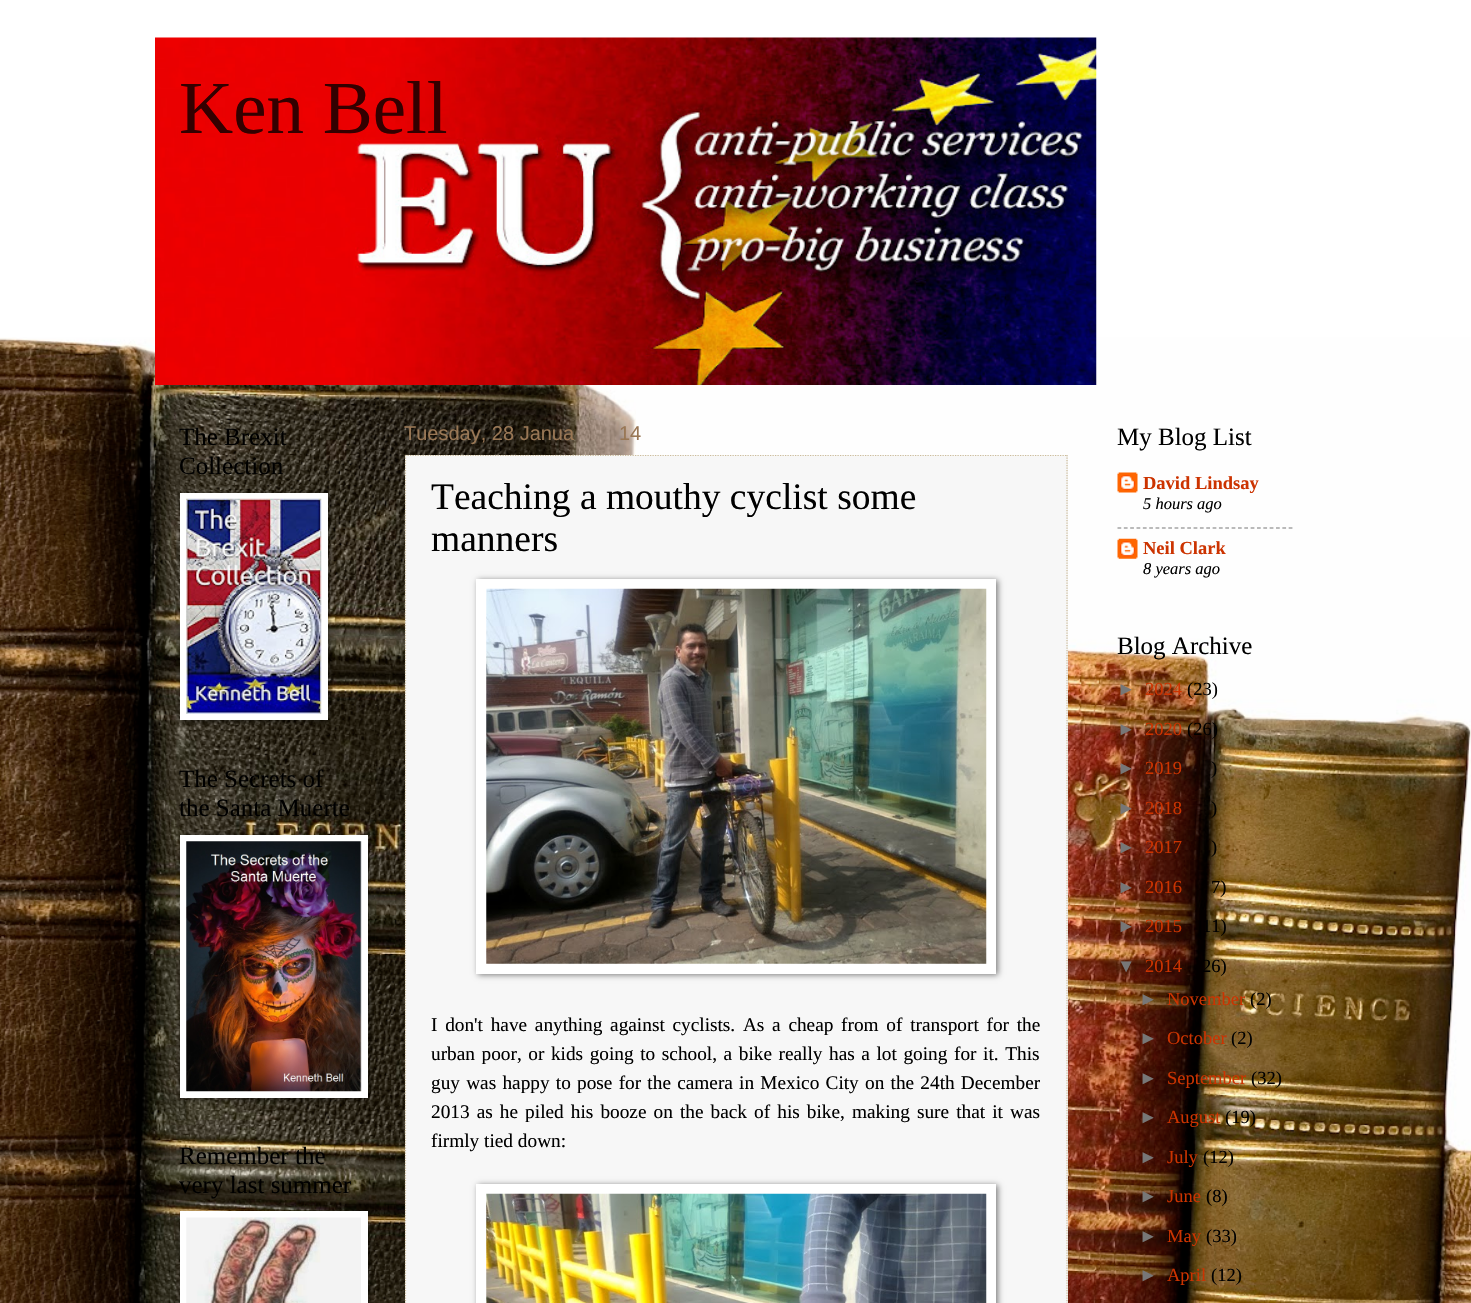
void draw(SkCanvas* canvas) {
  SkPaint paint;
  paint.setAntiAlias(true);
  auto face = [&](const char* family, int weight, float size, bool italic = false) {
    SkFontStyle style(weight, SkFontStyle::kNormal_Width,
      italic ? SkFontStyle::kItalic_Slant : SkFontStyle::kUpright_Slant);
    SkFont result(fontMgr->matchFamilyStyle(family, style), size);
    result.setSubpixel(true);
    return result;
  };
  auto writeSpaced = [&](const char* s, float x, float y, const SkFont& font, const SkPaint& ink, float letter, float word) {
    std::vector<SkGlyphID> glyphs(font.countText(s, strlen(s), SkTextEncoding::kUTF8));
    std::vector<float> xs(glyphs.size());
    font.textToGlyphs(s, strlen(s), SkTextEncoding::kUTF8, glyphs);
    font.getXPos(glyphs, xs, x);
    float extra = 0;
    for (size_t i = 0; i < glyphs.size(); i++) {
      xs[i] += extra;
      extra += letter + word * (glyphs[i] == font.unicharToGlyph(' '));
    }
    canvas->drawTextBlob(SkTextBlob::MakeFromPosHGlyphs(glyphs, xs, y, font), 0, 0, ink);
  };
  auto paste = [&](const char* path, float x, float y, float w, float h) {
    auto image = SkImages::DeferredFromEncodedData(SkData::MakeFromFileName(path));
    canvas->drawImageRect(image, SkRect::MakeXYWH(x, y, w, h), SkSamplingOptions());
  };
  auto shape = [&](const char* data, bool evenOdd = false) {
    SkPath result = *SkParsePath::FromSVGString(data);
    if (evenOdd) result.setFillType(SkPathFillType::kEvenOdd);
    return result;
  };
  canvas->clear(0xffffffff);
  paste("img/1.png", 0, 337, 1471, 966);
  paste("img/2.png", 155, 37, 942, 348);
  paint.setColor(0x80000000);
  paint.setMaskFilter(SkMaskFilter::MakeBlur(kNormal_SkBlurStyle, 3));
  canvas->drawRect(SkRect::MakeXYWH(181, 494, 148, 227), paint);
  paint.setMaskFilter(nullptr);
  paint.setColor(0xffffffff);
  canvas->drawRect(SkRect::MakeXYWH(180, 493, 148, 227), paint);
  paste("img/3.png", 186, 498, 136, 216);
  paint.setColor(0x80000000);
  paint.setMaskFilter(SkMaskFilter::MakeBlur(kNormal_SkBlurStyle, 3));
  canvas->drawRect(SkRect::MakeXYWH(181, 836, 188, 263), paint);
  paint.setMaskFilter(nullptr);
  paint.setColor(0xffffffff);
  canvas->drawRect(SkRect::MakeXYWH(180, 835, 188, 263), paint);
  paste("img/4.png", 186, 841, 176, 251);
  paint.setColor(0x80000000);
  paint.setMaskFilter(SkMaskFilter::MakeBlur(kNormal_SkBlurStyle, 3));
  canvas->drawRect(SkRect::MakeXYWH(181, 1213, 188, 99), paint);
  paint.setMaskFilter(nullptr);
  paint.setColor(0xffffffff);
  canvas->drawRect(SkRect::MakeXYWH(180, 1211, 188, 92), paint);
  paste("img/5.png", 186, 1217, 175, 86);
  paint.setColor(0xfff3f3f3);
  canvas->drawRect(SkRect::MakeXYWH(1067, 455, 1, 848), paint);
  paint.setColor(0xfff7f7f7);
  canvas->drawRect(SkRect::MakeXYWH(405, 455, 662, 848), paint);
  paint.setStroke(true);
  paint.setStrokeWidth(1.2f);
  paint.setColor(0xffccbb99);
  paint.setPathEffect(SkDashPathEffect::Make({{1.25f, 1.25f}}, 0));
  canvas->drawPath(shape("M405 455.5H1067.5"), paint);
  paint.setPathEffect(nullptr);
  paint.setPathEffect(SkDashPathEffect::Make({{1.25f, 1.25f}}, 0));
  canvas->drawPath(shape("M1067 455V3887.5"), paint);
  paint.setPathEffect(nullptr);
  paint.setPathEffect(SkDashPathEffect::Make({{1.25f, 1.25f}}, 0));
  canvas->drawPath(shape("M405.5 455V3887.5"), paint);
  paint.setPathEffect(nullptr);
  paint.setStroke(false);
  paint.setColor(0x80000000);
  paint.setMaskFilter(SkMaskFilter::MakeBlur(kNormal_SkBlurStyle, 3));
  canvas->drawRect(SkRect::MakeXYWH(478, 580, 520, 395), paint);
  paint.setMaskFilter(nullptr);
  paint.setColor(0xffffffff);
  canvas->drawRect(SkRect::MakeXYWH(476, 579, 520, 395), paint);
  paste("img/6.png", 486, 588, 501, 376);
  paint.setColor(0x80000000);
  paint.setMaskFilter(SkMaskFilter::MakeBlur(kNormal_SkBlurStyle, 3));
  canvas->drawRect(SkRect::MakeXYWH(478, 1185, 520, 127), paint);
  paint.setMaskFilter(nullptr);
  paint.setColor(0xffffffff);
  canvas->drawRect(SkRect::MakeXYWH(476, 1184, 520, 119), paint);
  paste("img/7.png", 486, 1193, 501, 110);
  paste("img/8.png", 1117, 472, 21, 21);
  paint.setStroke(true);
  paint.setColor(0xff777777);
  paint.setPathEffect(SkDashPathEffect::Make({{3.75f, 2.59f}}, 0));
  canvas->drawPath(shape("M1117.5 528H1292.5"), paint);
  paint.setPathEffect(nullptr);
  paste("img/9.png", 1117, 538, 21, 21);
  auto f0 = face("Liberation Serif", 400, 75);
  paint.setStroke(false);
  paint.setColor(0xff330000);
  canvas->drawString("Ken Bell", 179, 133, f0, paint);
  auto f1 = face("Liberation Serif", 400, 25);
  paint.setColor(0xff000000);
  {
    const struct { const char* s; float x, y; } items[] = {
      {"The Brexit", 179, 445},
      {"Collection", 179, 474},
      {"The Secrets of", 179, 787},
      {"the Santa Muerte", 179, 816},
      {"Remember the", 179, 1164},
      {"very last summer", 179, 1193},
    };
    for (auto [s, x, y] : items) {
      canvas->drawString(s, x, y, f1, paint);
    }
  }
  auto f2 = face("Liberation Sans", 400, 20);
  paint.setColor(0xff997755);
  canvas->drawString("Tuesday, 28 Janua", 404, 440, f2, paint);
  canvas->drawString("14", 619, 440, f2, paint);
  auto f3 = face("Liberation Serif", 400, 37.5f);
  paint.setColor(0xff000000);
  canvas->drawString("Teaching a mouthy cyclist some", 431, 509, f3, paint);
  canvas->drawString("manners", 431, 551, f3, paint);
  auto f4 = face("Liberation Serif", 400, 19.3f);
  writeSpaced("I don't have anything against cyclists. As a cheap from of transport for the", 431, 1031, f4, paint, 0, 2.9f);
  writeSpaced("urban poor, or kids going to school, a bike really has a lot going for it. This", 431, 1060, f4, paint, 0, 1.75f);
  writeSpaced("guy was happy to pose for the camera in Mexico City on the 24th December", 431, 1089, f4, paint, 0, 1.4f);
  writeSpaced("2013 as he piled his booze on the back of his bike, making sure that it was", 431, 1118, f4, paint, 0, 2.25f);
  canvas->drawString("firmly tied down:", 431, 1147, f4, paint);
  canvas->drawString("My Blog List", 1117, 445, f1, paint);
  auto f5 = face("Liberation Serif", 700, 18.5f);
  paint.setColor(0xffcc3300);
  canvas->drawString("David Lindsay", 1143, 489, f5, paint);
  auto f6 = face("Liberation Serif", 400, 16.5f, true);
  paint.setColor(0xff000000);
  canvas->drawString("5 hours ago", 1143, 509, f6, paint);
  paint.setColor(0xffcc3300);
  canvas->drawString("Neil Clark", 1143, 554, f5, paint);
  paint.setColor(0xff000000);
  canvas->drawString("8 years ago", 1143, 574, f6, paint);
  canvas->drawString("Blog Archive", 1117, 654, f1, paint);
  auto f7 = face("Liberation Sans", 400, 18.5f);
  paint.setColor(0xff777777);
  canvas->drawString("►", 1117, 695, f7, paint);
  auto f8 = face("Liberation Serif", 400, 18.5f);
  paint.setColor(0xffcc3300);
  canvas->drawString("2024", 1145, 695, f8, paint);
  paint.setColor(0xff000000);
  canvas->drawString("(23)", 1187, 695, f8, paint);
  paint.setColor(0xff777777);
  canvas->drawString("►", 1117, 735, f7, paint);
  paint.setColor(0xffcc3300);
  canvas->drawString("2020", 1145, 735, f8, paint);
  paint.setColor(0xff000000);
  canvas->drawString("(26)", 1187, 735, f8, paint);
  paint.setColor(0xff777777);
  canvas->drawString("►", 1117, 774, f7, paint);
  paint.setColor(0xffcc3300);
  canvas->drawString("2019", 1145, 774, f8, paint);
  paint.setColor(0xff000000);
  canvas->drawString(")", 1211, 774, f8, paint);
  paint.setColor(0xff777777);
  canvas->drawString("►", 1117, 814, f7, paint);
  paint.setColor(0xffcc3300);
  canvas->drawString("2018", 1145, 814, f8, paint);
  paint.setColor(0xff000000);
  canvas->drawString(")", 1211, 814, f8, paint);
  paint.setColor(0xff777777);
  canvas->drawString("►", 1117, 853, f7, paint);
  paint.setColor(0xffcc3300);
  canvas->drawString("2017", 1145, 853, f8, paint);
  paint.setColor(0xff000000);
  canvas->drawString(")", 1211, 853, f8, paint);
  paint.setColor(0xff777777);
  canvas->drawString("►", 1117, 893, f7, paint);
  paint.setColor(0xffcc3300);
  canvas->drawString("2016", 1145, 893, f8, paint);
  paint.setColor(0xff000000);
  canvas->drawString("7)", 1211, 893, f8, paint);
  paint.setColor(0xff777777);
  canvas->drawString("►", 1117, 932, f7, paint);
  paint.setColor(0xffcc3300);
  canvas->drawString("2015", 1145, 932, f8, paint);
  paint.setColor(0xff000000);
  canvas->drawString("11)", 1202, 932, f8, paint);
  paint.setColor(0xff777777);
  canvas->drawString("▼", 1117, 972, f7, paint);
  paint.setColor(0xffcc3300);
  canvas->drawString("2014", 1145, 972, f8, paint);
  paint.setColor(0xff000000);
  canvas->drawString("26)", 1202, 972, f8, paint);
  paint.setColor(0xff777777);
  canvas->drawString("►", 1139, 1005, f7, paint);
  paint.setColor(0xffcc3300);
  canvas->drawString("November", 1167, 1005, f8, paint);
  paint.setColor(0xff000000);
  canvas->drawString("(2)", 1250, 1005, f8, paint);
  paint.setColor(0xff777777);
  canvas->drawString("►", 1139, 1044, f7, paint);
  paint.setColor(0xffcc3300);
  canvas->drawString("October", 1167, 1044, f8, paint);
  paint.setColor(0xff000000);
  canvas->drawString("(2)", 1231, 1044, f8, paint);
  paint.setColor(0xff777777);
  canvas->drawString("►", 1139, 1084, f7, paint);
  paint.setColor(0xffcc3300);
  canvas->drawString("September", 1167, 1084, f8, paint);
  paint.setColor(0xff000000);
  canvas->drawString("(32)", 1251, 1084, f8, paint);
  paint.setColor(0xff777777);
  canvas->drawString("►", 1139, 1123, f7, paint);
  paint.setColor(0xffcc3300);
  canvas->drawString("August", 1167, 1123, f8, paint);
  paint.setColor(0xff000000);
  canvas->drawString("(19)", 1225, 1123, f8, paint);
  paint.setColor(0xff777777);
  canvas->drawString("►", 1139, 1163, f7, paint);
  paint.setColor(0xffcc3300);
  canvas->drawString("July", 1167, 1163, f8, paint);
  paint.setColor(0xff000000);
  canvas->drawString("(12)", 1203, 1163, f8, paint);
  paint.setColor(0xff777777);
  canvas->drawString("►", 1139, 1202, f7, paint);
  paint.setColor(0xffcc3300);
  canvas->drawString("June", 1167, 1202, f8, paint);
  paint.setColor(0xff000000);
  canvas->drawString("(8)", 1206, 1202, f8, paint);
  paint.setColor(0xff777777);
  canvas->drawString("►", 1139, 1242, f7, paint);
  paint.setColor(0xffcc3300);
  canvas->drawString("May", 1167, 1242, f8, paint);
  paint.setColor(0xff000000);
  canvas->drawString("(33)", 1206, 1242, f8, paint);
  paint.setColor(0xff777777);
  canvas->drawString("►", 1139, 1281, f7, paint);
  paint.setColor(0xffcc3300);
  canvas->drawString("April", 1167, 1281, f8, paint);
  paint.setColor(0xff000000);
  canvas->drawString("(12)", 1211, 1281, f8, paint);
}
